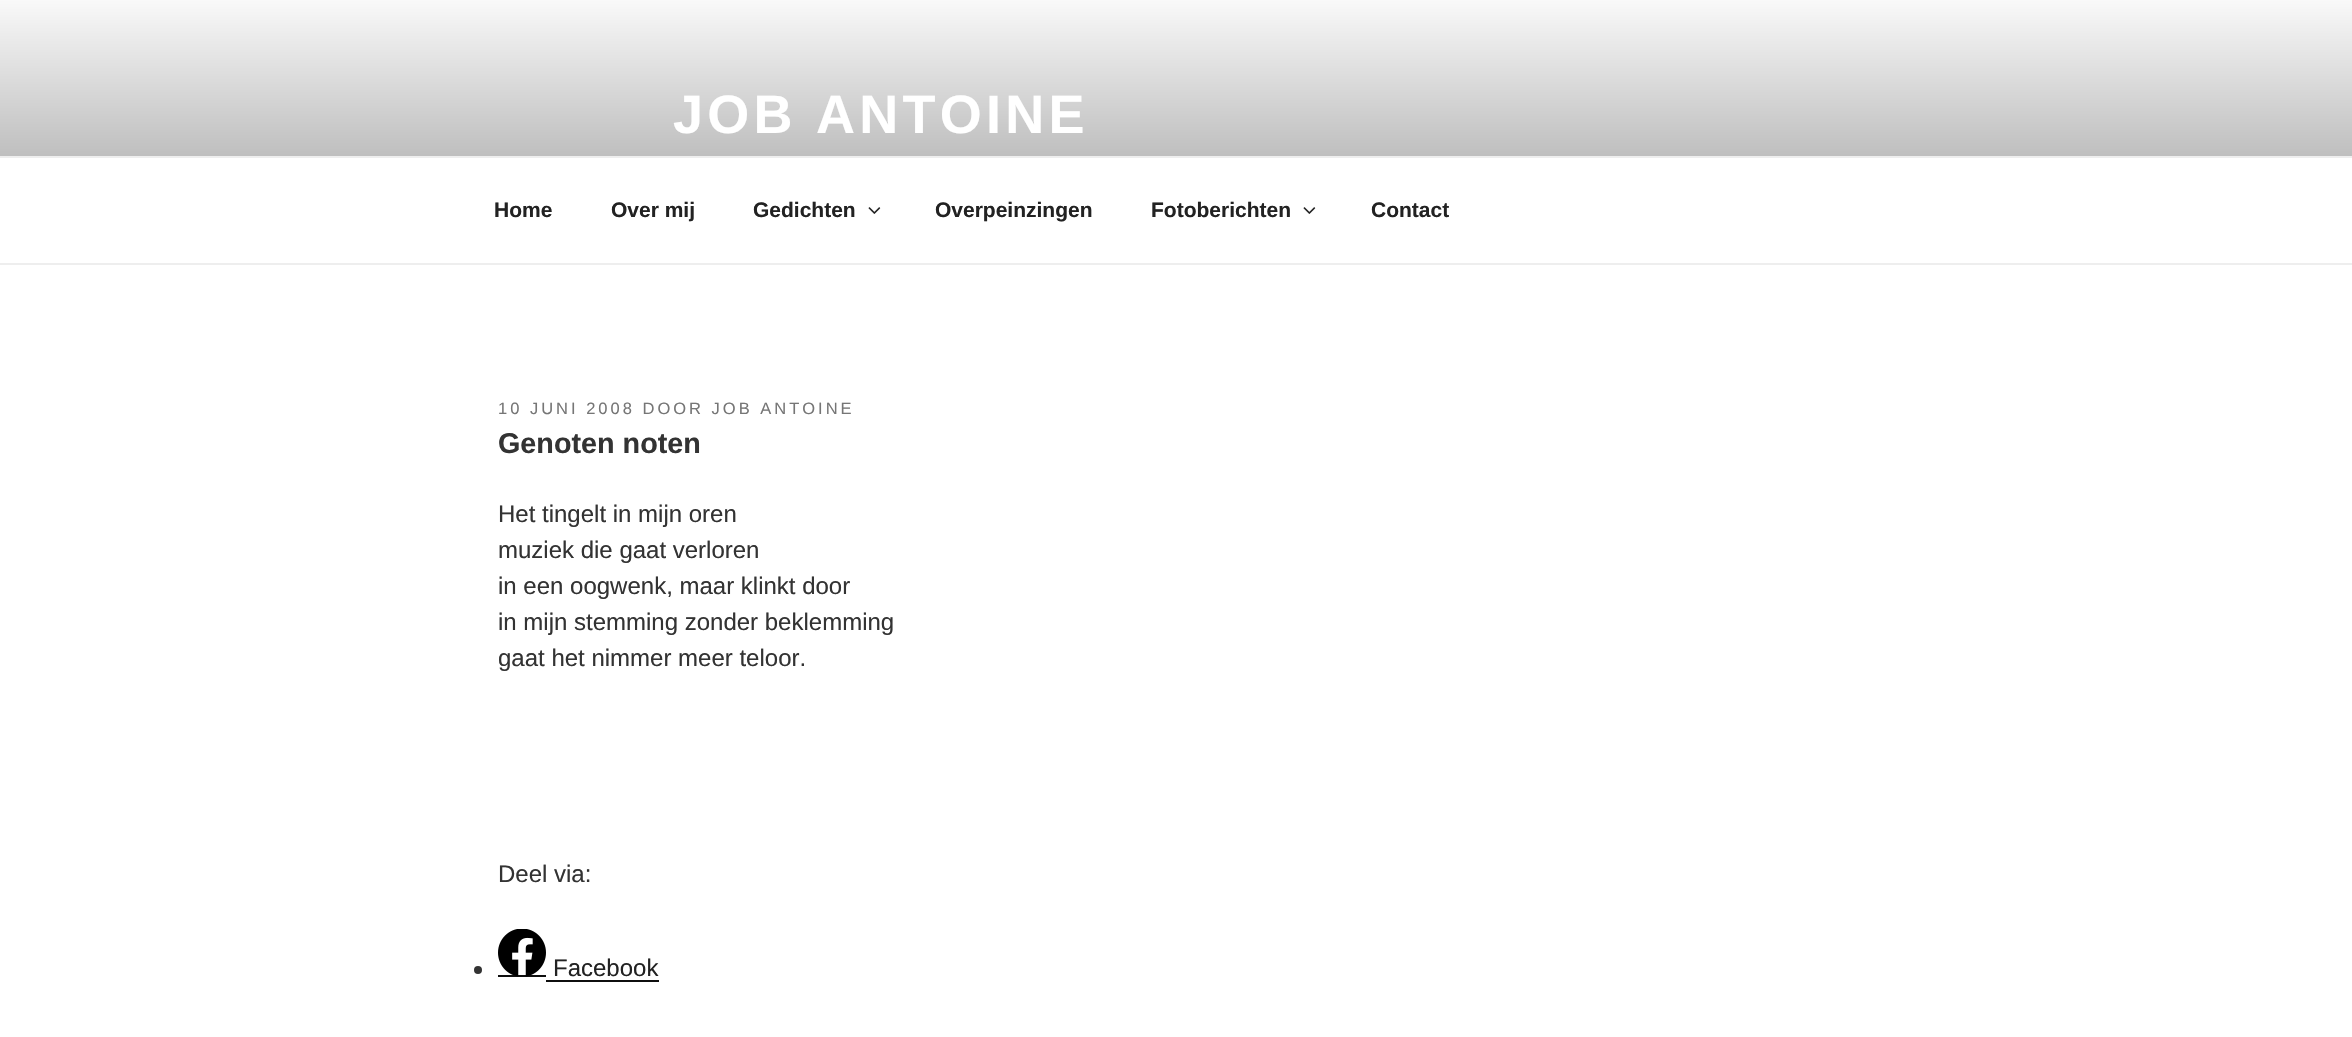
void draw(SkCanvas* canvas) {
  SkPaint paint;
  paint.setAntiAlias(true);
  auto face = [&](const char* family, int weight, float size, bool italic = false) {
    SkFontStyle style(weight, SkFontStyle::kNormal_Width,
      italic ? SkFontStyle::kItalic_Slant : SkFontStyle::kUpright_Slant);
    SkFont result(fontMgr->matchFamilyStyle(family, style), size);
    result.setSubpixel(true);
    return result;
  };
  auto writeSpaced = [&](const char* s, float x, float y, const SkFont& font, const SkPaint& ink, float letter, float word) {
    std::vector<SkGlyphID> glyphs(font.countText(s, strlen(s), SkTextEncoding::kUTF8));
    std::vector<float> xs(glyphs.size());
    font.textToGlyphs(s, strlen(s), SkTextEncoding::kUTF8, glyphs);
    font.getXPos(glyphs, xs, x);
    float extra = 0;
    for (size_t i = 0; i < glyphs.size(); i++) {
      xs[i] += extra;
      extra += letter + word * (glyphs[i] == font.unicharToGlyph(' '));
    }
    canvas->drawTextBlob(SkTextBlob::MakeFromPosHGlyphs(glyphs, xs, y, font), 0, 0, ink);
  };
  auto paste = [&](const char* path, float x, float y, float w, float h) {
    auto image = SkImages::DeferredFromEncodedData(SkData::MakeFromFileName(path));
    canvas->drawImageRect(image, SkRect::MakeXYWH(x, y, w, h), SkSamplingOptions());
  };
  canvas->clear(0xffffffff);
  {
    const SkColor colors[] = {0xfff9f9f9, 0xffafafaf, 0xffafafaf};
    const float stops[] = {0, 0.75f, 1};
    const SkPoint ends[] = {{1176, 0}, {1176, 264}};
    paint.setShader(SkGradientShader::MakeLinear(ends, colors, stops, 3, SkTileMode::kClamp));
    paint.setAlpha(255);
  }
  canvas->drawRect(SkRect::MakeXYWH(0, 0, 2352, 156), paint);
  paint.setShader(nullptr);
  paint.setColor(0xffeeeeee);
  canvas->drawRect(SkRect::MakeXYWH(0, 156, 2352, 2), paint);
  canvas->drawRect(SkRect::MakeXYWH(0, 263, 2352, 2), paint);
  paste("img/1.png", 868, 207, 13, 7);
  paste("img/1.png", 1303, 207, 13, 7);
  paint.setColor(0xff333333);
  canvas->drawCircle(478, 970, 4, paint);
  paint.setColor(0xff0f0f0f);
  canvas->drawRect(SkRect::MakeXYWH(498, 975, 48, 2), paint);
  paste("img/2.png", 498, 929, 48, 48);
  canvas->drawRect(SkRect::MakeXYWH(546, 980, 113, 2), paint);
  auto f0 = face("Liberation Sans", 700, 54);
  paint.setColor(0xffffffff);
  writeSpaced("JOB ANTOINE", 673, 133, f0, paint, 4.25f, 0);
  auto f1 = face("Liberation Sans", 700, 21);
  paint.setColor(0xff222222);
  {
    const struct { const char* s; float x, y; } items[] = {
      {"Home", 494, 217},
      {"Over mij", 611, 217},
      {"Gedichten", 753, 217},
      {"Overpeinzingen", 935, 217},
      {"Fotoberichten", 1151, 217},
      {"Contact", 1371, 217},
    };
    for (auto [s, x, y] : items) {
      canvas->drawString(s, x, y, f1, paint);
    }
  }
  auto f2 = face("Liberation Sans", 400, 16.5f);
  paint.setColor(0xff767676);
  writeSpaced("10 JUNI 2008 DOOR JOB ANTOINE", 498, 414, f2, paint, 3, 0);
  auto f3 = face("Liberation Sans", 700, 28.75f);
  paint.setColor(0xff333333);
  canvas->drawString("Genoten noten", 498, 453, f3, paint);
  auto f4 = face("Liberation Sans", 400, 24);
  {
    const struct { const char* s; float x, y; } items[] = {
      {"Het tingelt in mijn oren", 498, 522},
      {"muziek die gaat verloren", 498, 558},
      {"in een oogwenk, maar klinkt door", 498, 594},
      {"in mijn stemming zonder beklemming", 498, 630},
      {"gaat het nimmer meer teloor.", 498, 666},
      {"Deel via:", 498, 882},
    };
    for (auto [s, x, y] : items) {
      canvas->drawString(s, x, y, f4, paint);
    }
  }
  paint.setColor(0xff222222);
  canvas->drawString("Facebook", 553, 976, f4, paint);
}
